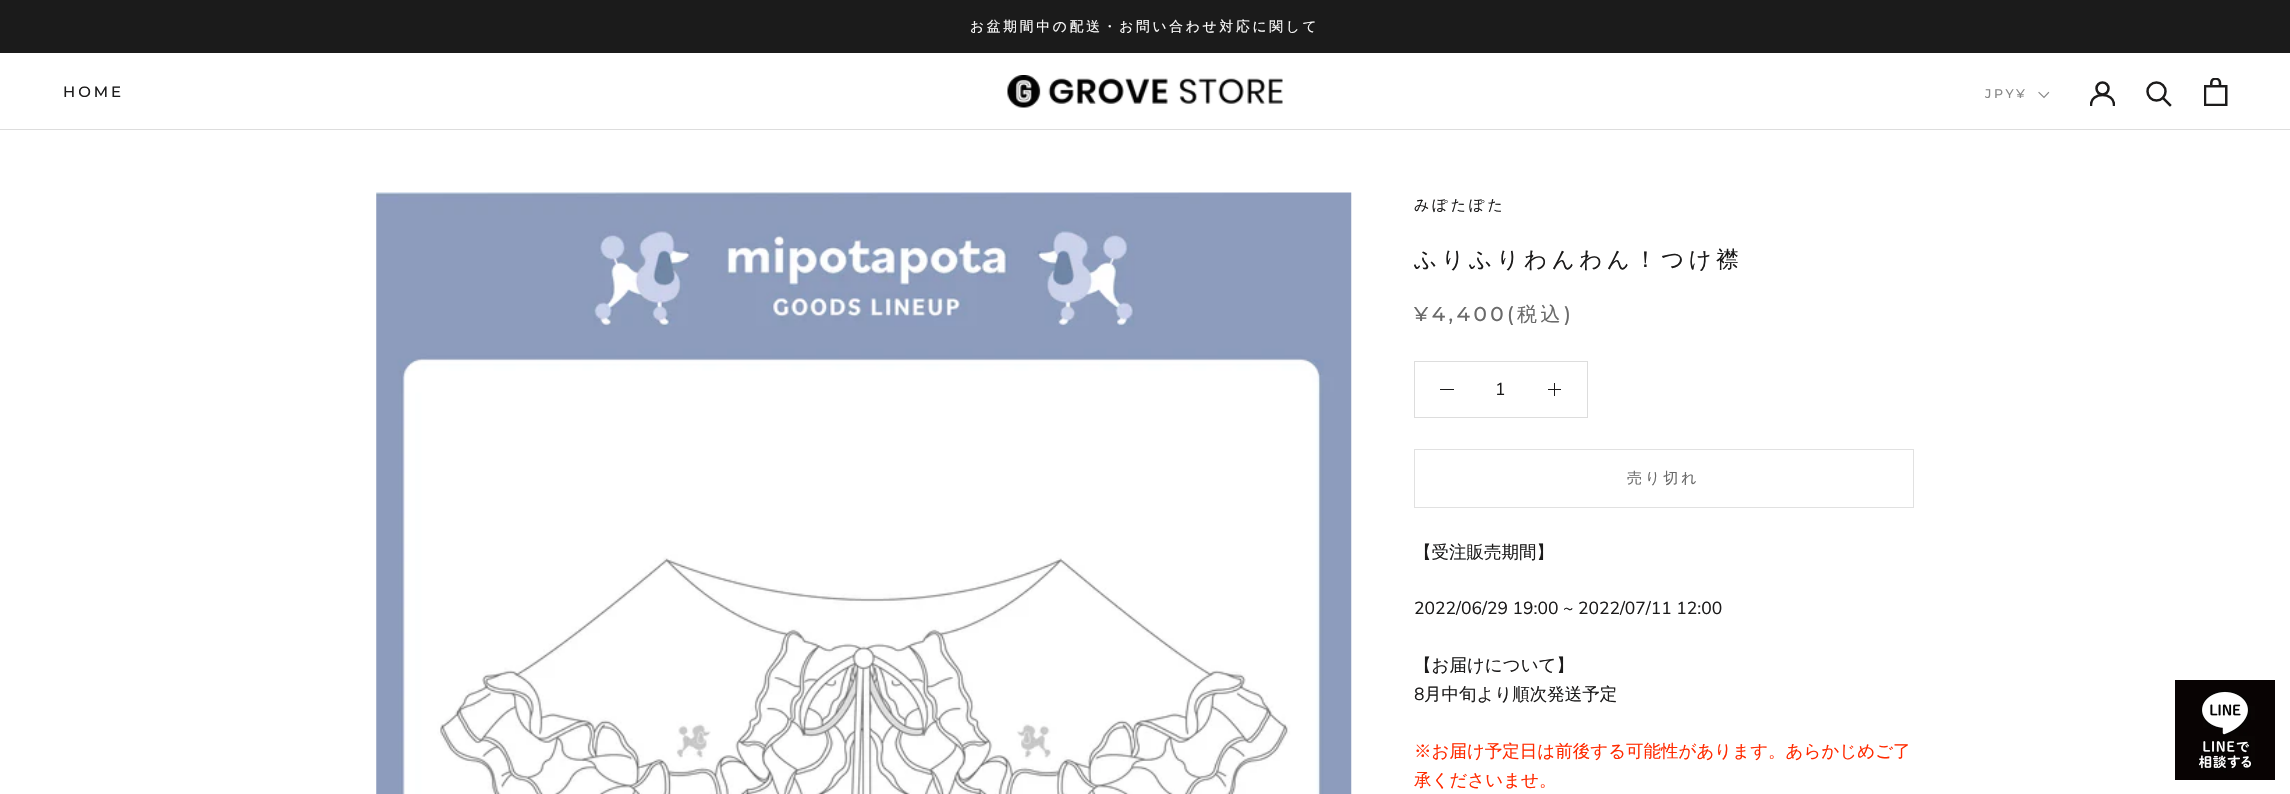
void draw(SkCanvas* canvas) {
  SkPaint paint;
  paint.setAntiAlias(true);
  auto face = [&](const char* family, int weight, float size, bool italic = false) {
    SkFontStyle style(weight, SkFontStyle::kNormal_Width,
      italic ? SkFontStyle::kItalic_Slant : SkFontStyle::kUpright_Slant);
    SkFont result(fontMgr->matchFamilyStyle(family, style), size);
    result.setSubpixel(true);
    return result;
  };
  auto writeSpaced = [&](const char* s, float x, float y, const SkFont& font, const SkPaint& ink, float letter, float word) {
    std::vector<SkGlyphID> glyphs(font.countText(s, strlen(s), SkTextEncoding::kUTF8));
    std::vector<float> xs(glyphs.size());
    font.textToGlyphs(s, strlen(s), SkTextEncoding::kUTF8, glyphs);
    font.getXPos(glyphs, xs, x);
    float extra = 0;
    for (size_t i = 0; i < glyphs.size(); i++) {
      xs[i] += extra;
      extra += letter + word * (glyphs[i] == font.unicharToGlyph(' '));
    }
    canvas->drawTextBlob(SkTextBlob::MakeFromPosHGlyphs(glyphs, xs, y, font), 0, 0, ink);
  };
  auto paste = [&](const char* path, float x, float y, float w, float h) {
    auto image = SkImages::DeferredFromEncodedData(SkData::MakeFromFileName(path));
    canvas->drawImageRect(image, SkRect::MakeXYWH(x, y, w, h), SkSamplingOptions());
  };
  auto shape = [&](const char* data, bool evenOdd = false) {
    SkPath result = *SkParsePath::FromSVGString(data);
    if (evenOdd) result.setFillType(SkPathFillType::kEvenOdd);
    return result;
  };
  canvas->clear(0xffffffff);
  paint.setColor(0xff1b1b1b);
  canvas->drawRect(SkRect::MakeXYWH(0, 0, 2290, 53), paint);
  paint.setColor(0xffdddddd);
  canvas->drawRect(SkRect::MakeXYWH(0, 129, 2290, 1), paint);
  paste("img/1.png", 1007, 75, 276, 33);
  paint.setStroke(true);
  paint.setStrokeWidth(1.2f);
  paint.setStrokeCap(SkPaint::kSquare_Cap);
  paint.setColor(0xff888888);
  canvas->drawPath(shape("M2048.5 92.5L2044 97.5L2039 92.5"), paint);
  canvas->save();
  canvas->clipRect(SkRect::MakeXYWH(2090, 81, 25, 25));
  paint.setStrokeWidth(2.5f);
  paint.setColor(0xff1c1b1b);
  canvas->drawPath(shape("M2091 105C2091 91.5 2114 91.5 2114 105"), paint);
  canvas->restore();
  paint.setStrokeCap(SkPaint::kButt_Cap);
  canvas->drawCircle(2102.5f, 88.5f, 6, paint);
  paint.setStrokeCap(SkPaint::kSquare_Cap);
  canvas->drawPath(shape("M2170 105L2163 98"), paint);
  paint.setStrokeCap(SkPaint::kButt_Cap);
  canvas->drawCircle(2156.5f, 91.5f, 9, paint);
  paste("img/2.png", 2204, 78, 24, 28);
  paste("img/3.png", 376, 192, 976, 602);
  paint.setStrokeWidth(1);
  paint.setColor(0xffdddddd);
  canvas->drawRect(SkRect::MakeXYWH(1414.5f, 361.5f, 173, 56), paint);
  paint.setStroke(false);
  {
    const struct { float x, y, w, h; SkColor color; } items[] = {
      {1440, 389, 14, 1, 0xff1c1b1b},
      {1554, 383, 1, 13, 0xff1c1b1b},
      {1548, 389, 13, 1, 0xff1c1b1b},
    };
    for (auto [x, y, w, h, color] : items) {
      paint.setColor(color);
      canvas->drawRect(SkRect::MakeXYWH(x, y, w, h), paint);
    }
  }
  paint.setStroke(true);
  paint.setColor(0xffe1e1e1);
  canvas->drawRect(SkRect::MakeXYWH(1414.5f, 449.5f, 499, 58), paint);
  paste("img/4.png", 2175, 680, 100, 100);
  auto f0 = face("WenQuanYi Zen Hei", 500, 13.75f);
  paint.setStroke(false);
  paint.setColor(0xffffffff);
  writeSpaced("お盆期間中の配送・お問い合わせ対応に関して", 970, 31, f0, paint, 2.75f, 0);
  auto f1 = face("Montserrat", 500, 15);
  paint.setColor(0xff1c1b1b);
  writeSpaced("HOME", 63, 97, f1, paint, 3, 0);
  auto f2 = face("Montserrat", 500, 12.5f);
  paint.setColor(0xff888888);
  writeSpaced("JPY¥", 1985, 98, f2, paint, 2.5f, 0);
  auto f3 = face("WenQuanYi Zen Hei", 500, 15);
  paint.setColor(0xff1c1b1b);
  writeSpaced("みぽたぽた", 1414, 210, f3, paint, 3, 0);
  auto f4 = face("WenQuanYi Zen Hei", 500, 22.5f);
  writeSpaced("ふりふりわんわん！つけ襟", 1414, 267, f4, paint, 4.5f, 0);
  auto f5 = face("Montserrat", 500, 20);
  paint.setColor(0xff6a6a6a);
  writeSpaced("¥4,400(", 1414, 321, f5, paint, 3.5f, 0);
  auto f6 = face("WenQuanYi Zen Hei", 500, 20);
  writeSpaced("税込", 1517, 321, f6, paint, 3.5f, 0);
  writeSpaced(")", 1564, 321, f5, paint, 3.5f, 0);
  auto f7 = face("Nunito Sans", 400, 17.5f);
  paint.setColor(0xff1c1b1b);
  canvas->drawString("1", 1495, 395, f7, paint);
  paint.setColor(0xff6a6a6a);
  writeSpaced("売り切れ", 1627, 483, f3, paint, 3, 0);
  auto f8 = face("WenQuanYi Zen Hei", 500, 17.5f);
  paint.setColor(0xff1c1b1b);
  canvas->drawString("【受注販売期間】", 1414, 558, f8, paint);
  canvas->drawString("2022/06/29 19:00 ~ 2022/07/11 12:00", 1414, 614, f7, paint);
  canvas->drawString("【お届けについて】", 1414, 671, f8, paint);
  canvas->drawString("8", 1414, 700, f7, paint);
  canvas->drawString("月中旬より順次発送予定", 1424, 700, f8, paint);
  paint.setColor(0xffff2a00);
  canvas->drawString("※お届け予定日は前後する可能性があります。あらかじめご了", 1414, 757, f8, paint);
  canvas->drawString("承くださいませ。", 1414, 786, f8, paint);
}
